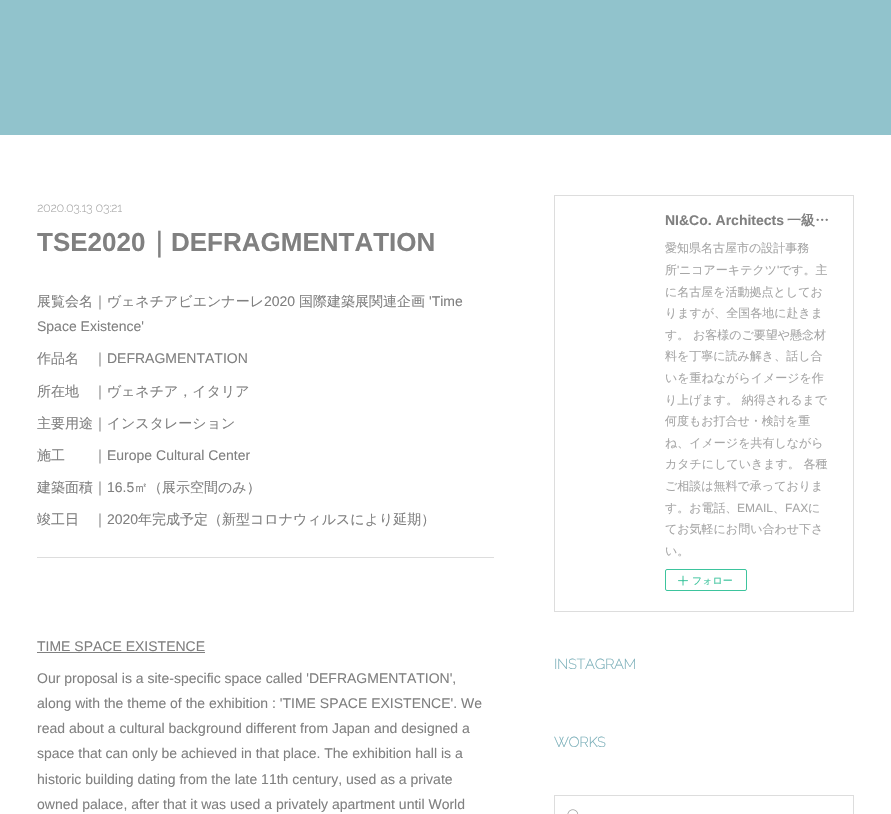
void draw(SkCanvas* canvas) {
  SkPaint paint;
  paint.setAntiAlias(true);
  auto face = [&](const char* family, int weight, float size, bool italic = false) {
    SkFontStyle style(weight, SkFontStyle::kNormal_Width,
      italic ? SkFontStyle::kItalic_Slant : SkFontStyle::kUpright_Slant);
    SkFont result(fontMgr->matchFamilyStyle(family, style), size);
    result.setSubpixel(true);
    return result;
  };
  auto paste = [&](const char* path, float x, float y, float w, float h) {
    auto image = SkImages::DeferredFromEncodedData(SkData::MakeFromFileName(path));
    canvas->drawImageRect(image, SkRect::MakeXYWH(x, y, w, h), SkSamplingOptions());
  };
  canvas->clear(0xffffffff);
  {
    const struct { float x, y, w, h; SkColor color; } items[] = {
      {0, 0, 891, 135, 0xff91c3cc},
      {37, 557, 457, 1, 0xffdddddd},
      {37, 652, 168, 1, 0xff808080},
    };
    for (auto [x, y, w, h, color] : items) {
      paint.setColor(color);
      canvas->drawRect(SkRect::MakeXYWH(x, y, w, h), paint);
    }
  }
  paint.setStroke(true);
  paint.setStrokeWidth(1);
  paint.setColor(0xffdddddd);
  canvas->drawRect(SkRect::MakeXYWH(554.5f, 195.5f, 299, 416), paint);
  paint.setColor(0xff3dc49d);
  canvas->drawRoundRect(SkRect::MakeXYWH(665.5f, 569.5f, 81, 21), 1.5f, 1.5f, paint);
  paste("img/1.png", 678, 575, 10, 11);
  paint.setColor(0xffdddddd);
  canvas->drawRect(SkRect::MakeXYWH(554.5f, 795.5f, 299, 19), paint);
  paste("img/2.png", 567, 809, 12, 5);
  auto f0 = face("Raleway", 700, 12);
  paint.setStroke(false);
  paint.setColor(0xffa6a6a6);
  canvas->drawString("2020.03.13 03:21", 37, 212, f0, paint);
  auto f1 = face("Liberation Sans", 700, 26);
  paint.setColor(0xff808080);
  canvas->drawString("TSE2020", 37, 251, f1, paint);
  auto f2 = face("WenQuanYi Zen Hei", 700, 26);
  canvas->drawString("｜", 146, 251, f2, paint);
  canvas->drawString("DEFRAGMENTATION", 171, 251, f1, paint);
  auto f3 = face("WenQuanYi Zen Hei", 500, 14);
  canvas->drawString("展覧会名｜ヴェネチアビエンナーレ", 37, 306, f3, paint);
  auto f4 = face("Liberation Sans", 400, 14);
  canvas->drawString("2020", 264, 306, f4, paint);
  canvas->drawString("国際建築展関連企画", 299, 306, f3, paint);
  canvas->drawString("'Time", 429, 306, f4, paint);
  canvas->drawString("Space Existence'", 37, 331, f4, paint);
  canvas->drawString("作品名　｜", 37, 363, f3, paint);
  canvas->drawString("DEFRAGMENTATION", 107, 363, f4, paint);
  {
    const struct { const char* s; float x, y; } items[] = {
      {"所在地　｜ヴェネチア，イタリア", 37, 396},
      {"主要用途｜インスタレーション", 37, 428},
      {"施工　　｜", 37, 460},
    };
    for (auto [s, x, y] : items) {
      canvas->drawString(s, x, y, f3, paint);
    }
  }
  canvas->drawString("Europe Cultural Center", 107, 460, f4, paint);
  canvas->drawString("建築面積｜", 37, 492, f3, paint);
  canvas->drawString("16.5", 107, 492, f4, paint);
  canvas->drawString("㎡（展示空間のみ）", 134, 492, f3, paint);
  canvas->drawString("竣工日　｜", 37, 524, f3, paint);
  canvas->drawString("2020", 107, 524, f4, paint);
  canvas->drawString("年完成予定（新型コロナウィルスにより延期）", 138, 524, f3, paint);
  {
    const struct { const char* s; float x, y; } items[] = {
      {"TIME SPACE EXISTENCE", 37, 651},
      {"Our proposal is a site-specific space called 'DEFRAGMENTATION',", 37, 683},
      {"along with the theme of the exhibition : 'TIME SPACE EXISTENCE'. We", 37, 708},
      {"read about a cultural background different from Japan and designed a", 37, 733},
      {"space that can only be achieved in that place. The exhibition hall is a", 37, 758},
      {"historic building dating from the late 11th century, used as a private", 37, 784},
      {"owned palace, after that it was used a privately apartment until World", 37, 809},
    };
    for (auto [s, x, y] : items) {
      canvas->drawString(s, x, y, f4, paint);
    }
  }
  auto f5 = face("Liberation Sans", 700, 14);
  canvas->drawString("NI&Co. Architects", 665, 225, f5, paint);
  auto f6 = face("WenQuanYi Zen Hei", 700, 14);
  canvas->drawString("一級…", 787, 225, f6, paint);
  auto f7 = face("WenQuanYi Zen Hei", 500, 12);
  paint.setColor(0xffa6a6a6);
  canvas->drawString("愛知県名古屋市の設計事務", 665, 252, f7, paint);
  canvas->drawString("所", 665, 274, f7, paint);
  auto f8 = face("Liberation Sans", 400, 12);
  canvas->drawString("'", 677, 274, f8, paint);
  canvas->drawString("ニコアーキテクツ", 679, 274, f7, paint);
  canvas->drawString("'", 777, 274, f8, paint);
  {
    const struct { const char* s; float x, y; } items[] = {
      {"です。主", 779, 274},
      {"に名古屋を活動拠点としてお", 665, 296},
      {"りますが、全国各地に赴きま", 665, 317},
      {"す。 お客様のご要望や懸念材", 665, 339},
      {"料を丁寧に読み解き、話し合", 665, 360},
      {"いを重ねながらイメージを作", 665, 382},
      {"り上げます。 納得されるまで", 665, 404},
      {"何度もお打合せ・検討を重", 665, 425},
      {"ね、イメージを共有しながら", 665, 447},
      {"カタチにしていきます。 各種", 665, 468},
      {"ご相談は無料で承っておりま", 665, 490},
      {"す。お電話、", 665, 512},
    };
    for (auto [s, x, y] : items) {
      canvas->drawString(s, x, y, f7, paint);
    }
  }
  canvas->drawString("EMAIL", 737, 512, f8, paint);
  canvas->drawString("、", 773, 512, f7, paint);
  canvas->drawString("FAX", 785, 512, f8, paint);
  {
    const struct { const char* s; float x, y; } items[] = {
      {"に", 808, 512},
      {"てお気軽にお問い合わせ下さ", 665, 533},
      {"い。", 665, 555},
    };
    for (auto [s, x, y] : items) {
      canvas->drawString(s, x, y, f7, paint);
    }
  }
  auto f9 = face("WenQuanYi Zen Hei", 500, 10);
  paint.setColor(0xff3dc49d);
  canvas->drawString("フォロー", 692, 584, f9, paint);
  auto f10 = face("Raleway", 700, 14);
  paint.setColor(0xff79aeb8);
  canvas->drawString("INSTAGRAM", 554, 669, f10, paint);
  canvas->drawString("WORKS", 554, 747, f10, paint);
}
